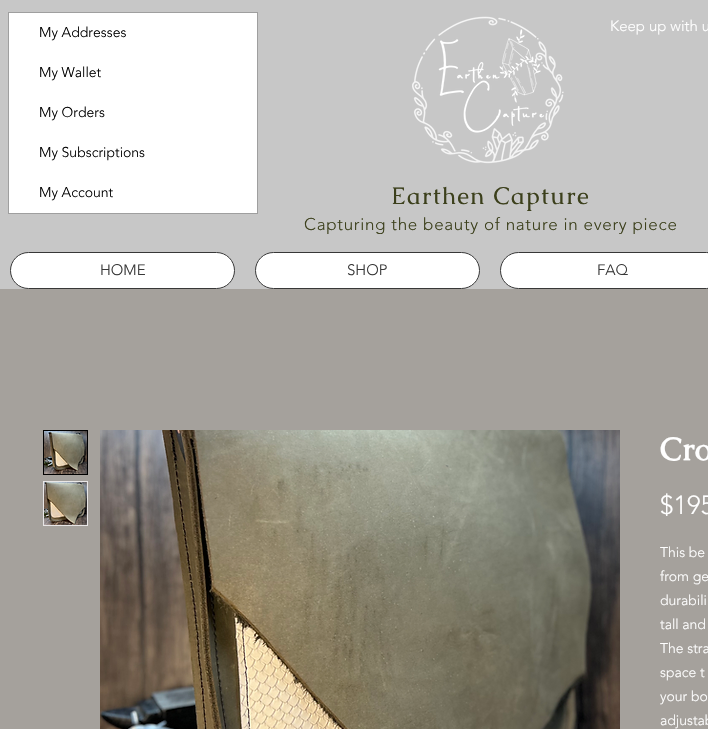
void draw(SkCanvas* canvas) {
  SkPaint paint;
  paint.setAntiAlias(true);
  auto face = [&](const char* family, int weight, float size, bool italic = false) {
    SkFontStyle style(weight, SkFontStyle::kNormal_Width,
      italic ? SkFontStyle::kItalic_Slant : SkFontStyle::kUpright_Slant);
    SkFont result(fontMgr->matchFamilyStyle(family, style), size);
    result.setSubpixel(true);
    return result;
  };
  auto writeSpaced = [&](const char* s, float x, float y, const SkFont& font, const SkPaint& ink, float letter, float word) {
    std::vector<SkGlyphID> glyphs(font.countText(s, strlen(s), SkTextEncoding::kUTF8));
    std::vector<float> xs(glyphs.size());
    font.textToGlyphs(s, strlen(s), SkTextEncoding::kUTF8, glyphs);
    font.getXPos(glyphs, xs, x);
    float extra = 0;
    for (size_t i = 0; i < glyphs.size(); i++) {
      xs[i] += extra;
      extra += letter + word * (glyphs[i] == font.unicharToGlyph(' '));
    }
    canvas->drawTextBlob(SkTextBlob::MakeFromPosHGlyphs(glyphs, xs, y, font), 0, 0, ink);
  };
  auto paste = [&](const char* path, float x, float y, float w, float h) {
    auto image = SkImages::DeferredFromEncodedData(SkData::MakeFromFileName(path));
    canvas->drawImageRect(image, SkRect::MakeXYWH(x, y, w, h), SkSamplingOptions());
  };
  canvas->clear(0xffc7c7c7);
  paint.setStroke(true);
  paint.setStrokeWidth(1);
  paint.setColor(0xff9f9f9f);
  canvas->drawRect(SkRect::MakeXYWH(8.5f, 12.5f, 249, 201), paint);
  paint.setStroke(false);
  paint.setColor(0xffffffff);
  canvas->drawRect(SkRect::MakeXYWH(9, 13, 248, 200), paint);
  paste("img/1.png", 412, 16, 152, 148);
  canvas->drawRoundRect(SkRect::MakeXYWH(10.5f, 252.5f, 224, 36), 18, 18, paint);
  paint.setStroke(true);
  paint.setColor(0xff383838);
  canvas->drawRoundRect(SkRect::MakeXYWH(10.5f, 252.5f, 224, 36), 18, 18, paint);
  paint.setStroke(false);
  paint.setColor(0xffffffff);
  canvas->drawRoundRect(SkRect::MakeXYWH(255.5f, 252.5f, 224, 36), 18, 18, paint);
  paint.setStroke(true);
  paint.setColor(0xff383838);
  canvas->drawRoundRect(SkRect::MakeXYWH(255.5f, 252.5f, 224, 36), 18, 18, paint);
  paint.setStroke(false);
  paint.setColor(0xffffffff);
  canvas->drawRoundRect(SkRect::MakeXYWH(500.5f, 252.5f, 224, 36), 18, 18, paint);
  paint.setStroke(true);
  paint.setColor(0xff383838);
  canvas->drawRoundRect(SkRect::MakeXYWH(500.5f, 252.5f, 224, 36), 18, 18, paint);
  paint.setStroke(false);
  paint.setColor(0xffa5a19c);
  canvas->drawRect(SkRect::MakeXYWH(0, 289, 708, 440), paint);
  paint.setStroke(true);
  paint.setColor(0xff000000);
  canvas->drawRect(SkRect::MakeXYWH(43.5f, 430.5f, 44, 44), paint);
  paste("img/2.png", 44, 431, 43, 43);
  paint.setStroke(false);
  paint.setColor(0xffe8e6e6);
  canvas->drawRect(SkRect::MakeXYWH(43, 481, 45, 45), paint);
  paste("img/3.png", 44, 482, 43, 43);
  paste("img/4.png", 100, 430, 520, 299);
  auto f0 = face("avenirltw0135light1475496", 300, 14);
  paint.setColor(0xff000000);
  {
    const struct { const char* s; float x, y; } items[] = {
      {"My Addresses", 39, 37},
      {"My Wallet", 39, 77},
      {"My Orders", 39, 117},
      {"My Subscriptions", 39, 157},
      {"My Account", 39, 197},
    };
    for (auto [s, x, y] : items) {
      canvas->drawString(s, x, y, f0, paint);
    }
  }
  auto f1 = face("avenirltw0135light1475496", 300, 15);
  paint.setColor(0xffffffff);
  canvas->drawString("Keep up with u", 610, 31, f1, paint);
  auto f2 = face("Caudex", 400, 24);
  paint.setColor(0xff3c401c);
  writeSpaced("Earthen Capture", 391, 204, f2, paint, 1.25f, 0);
  auto f3 = face("avenirltw0135light1475496", 300, 17);
  writeSpaced("Capturing the beauty of nature in every piece", 304, 230, f3, paint, 0.7f, 0);
  paint.setColor(0xff383838);
  {
    const struct { const char* s; float x, y; } items[] = {
      {"HOME", 100, 275},
      {"SHOP", 347, 275},
      {"FAQ", 597, 275},
    };
    for (auto [s, x, y] : items) {
      canvas->drawString(s, x, y, f1, paint);
    }
  }
  auto f4 = face("Caudex", 700, 32);
  paint.setColor(0xffffffff);
  canvas->drawString("Cro", 660, 460, f4, paint);
  auto f5 = face("avenirltw0135light1475496", 300, 26);
  canvas->drawString("$195", 660, 514, f5, paint);
  {
    const struct { const char* s; float x, y; } items[] = {
      {"This be", 660, 557},
      {"from ge", 660, 581},
      {"durabili", 660, 605},
      {"tall and", 660, 629},
      {"The stra", 660, 653},
      {"space t", 660, 677},
      {"your bo", 660, 701},
      {"adjustab", 660, 725},
    };
    for (auto [s, x, y] : items) {
      canvas->drawString(s, x, y, f0, paint);
    }
  }
}
